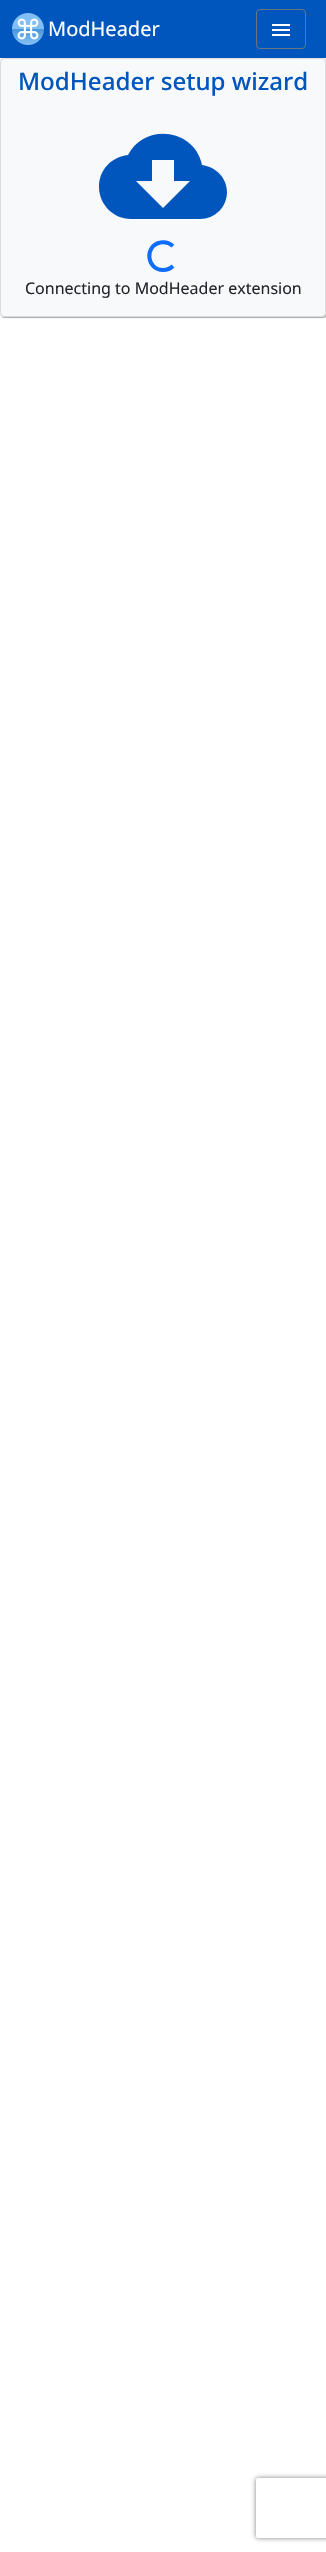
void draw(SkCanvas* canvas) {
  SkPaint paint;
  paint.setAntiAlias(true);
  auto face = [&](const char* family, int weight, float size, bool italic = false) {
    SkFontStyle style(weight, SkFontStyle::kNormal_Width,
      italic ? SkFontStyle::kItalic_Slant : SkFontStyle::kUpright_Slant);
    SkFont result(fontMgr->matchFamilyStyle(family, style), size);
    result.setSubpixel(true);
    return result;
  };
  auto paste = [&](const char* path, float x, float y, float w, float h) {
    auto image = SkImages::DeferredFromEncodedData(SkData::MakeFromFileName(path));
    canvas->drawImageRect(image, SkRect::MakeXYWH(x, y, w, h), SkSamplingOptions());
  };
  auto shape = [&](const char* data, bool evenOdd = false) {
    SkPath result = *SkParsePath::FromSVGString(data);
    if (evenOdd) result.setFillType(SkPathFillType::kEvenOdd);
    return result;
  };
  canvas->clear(0xffffffff);
  paint.setColor(0xff0056bd);
  canvas->drawRect(SkRect::MakeXYWH(0, 0, 326, 58), paint);
  paste("img/1.png", 12, 13, 32, 32);
  paint.setStroke(true);
  paint.setStrokeWidth(1);
  paint.setColor(0xff6c757d);
  canvas->drawRoundRect(SkRect::MakeXYWH(256.5f, 9.5f, 49, 39), 3.5f, 3.5f, paint);
  paste("img/2.png", 272, 24, 18, 12);
  paint.setStroke(false);
  paint.setColor(0xffaaaaaa);
  paint.setMaskFilter(SkMaskFilter::MakeBlur(kNormal_SkBlurStyle, 0.5f));
  canvas->drawRoundRect(SkRect::MakeXYWH(1, 59, 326, 259), 4, 4, paint);
  paint.setMaskFilter(nullptr);
  paint.setColor(0xfff8f9fa);
  canvas->drawRoundRect(SkRect::MakeXYWH(0, 58, 326, 259), 4, 4, paint);
  paint.setStroke(true);
  paint.setColor(0x1f000000);
  canvas->drawRoundRect(SkRect::MakeXYWH(0.5f, 58.5f, 325, 258), 3.5f, 3.5f, paint);
  paint.setStroke(false);
  paint.setColor(0xff0056bd);
  canvas->drawPath(shape("M190 181L163 208L136 181H152V160H174V181M202 165C195 129 145 122 128 155C111 157 99 170 99 187C99 204 113 219 131 219H200C215 219 227 207 227 192C227 178 216 167 202 165Z"), paint);
  paint.setStroke(true);
  paint.setStrokeWidth(4);
  paint.setColor(0xff0d6efd);
  canvas->drawPath(shape("M173 266C170.5 268.5 166.5 270 163 270C146.5 270 144 245.5 160.5 242.5C165 241.5 169.5 243 173 246"), paint);
  canvas->save();
  canvas->clipPath(shape("M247 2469H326V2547H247ZM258 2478H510C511 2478 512 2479 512 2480V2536C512 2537 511 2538 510 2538H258C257 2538 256 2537 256 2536V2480C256 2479 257 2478 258 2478Z", true), true);
  paint.setStroke(false);
  paint.setColor(0xff808080);
  paint.setMaskFilter(SkMaskFilter::MakeBlur(kNormal_SkBlurStyle, 2.5f));
  canvas->drawRoundRect(SkRect::MakeXYWH(256, 2478, 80, 60), 2, 2, paint);
  paint.setMaskFilter(nullptr);
  canvas->restore();
  auto f0 = face("Noto Sans", 400, 20);
  paint.setColor(0xffffffff);
  canvas->drawString("ModHeader", 48, 36, f0, paint);
  auto f1 = face("Noto Sans", 500, 24.1f);
  paint.setColor(0xff0056bd);
  canvas->drawString("ModHeader setup wizard", 18, 90, f1, paint);
  auto f2 = face("Noto Sans", 400, 16);
  paint.setColor(0xff212529);
  canvas->drawString("Connecting to ModHeader extension", 25, 294, f2, paint);
}
